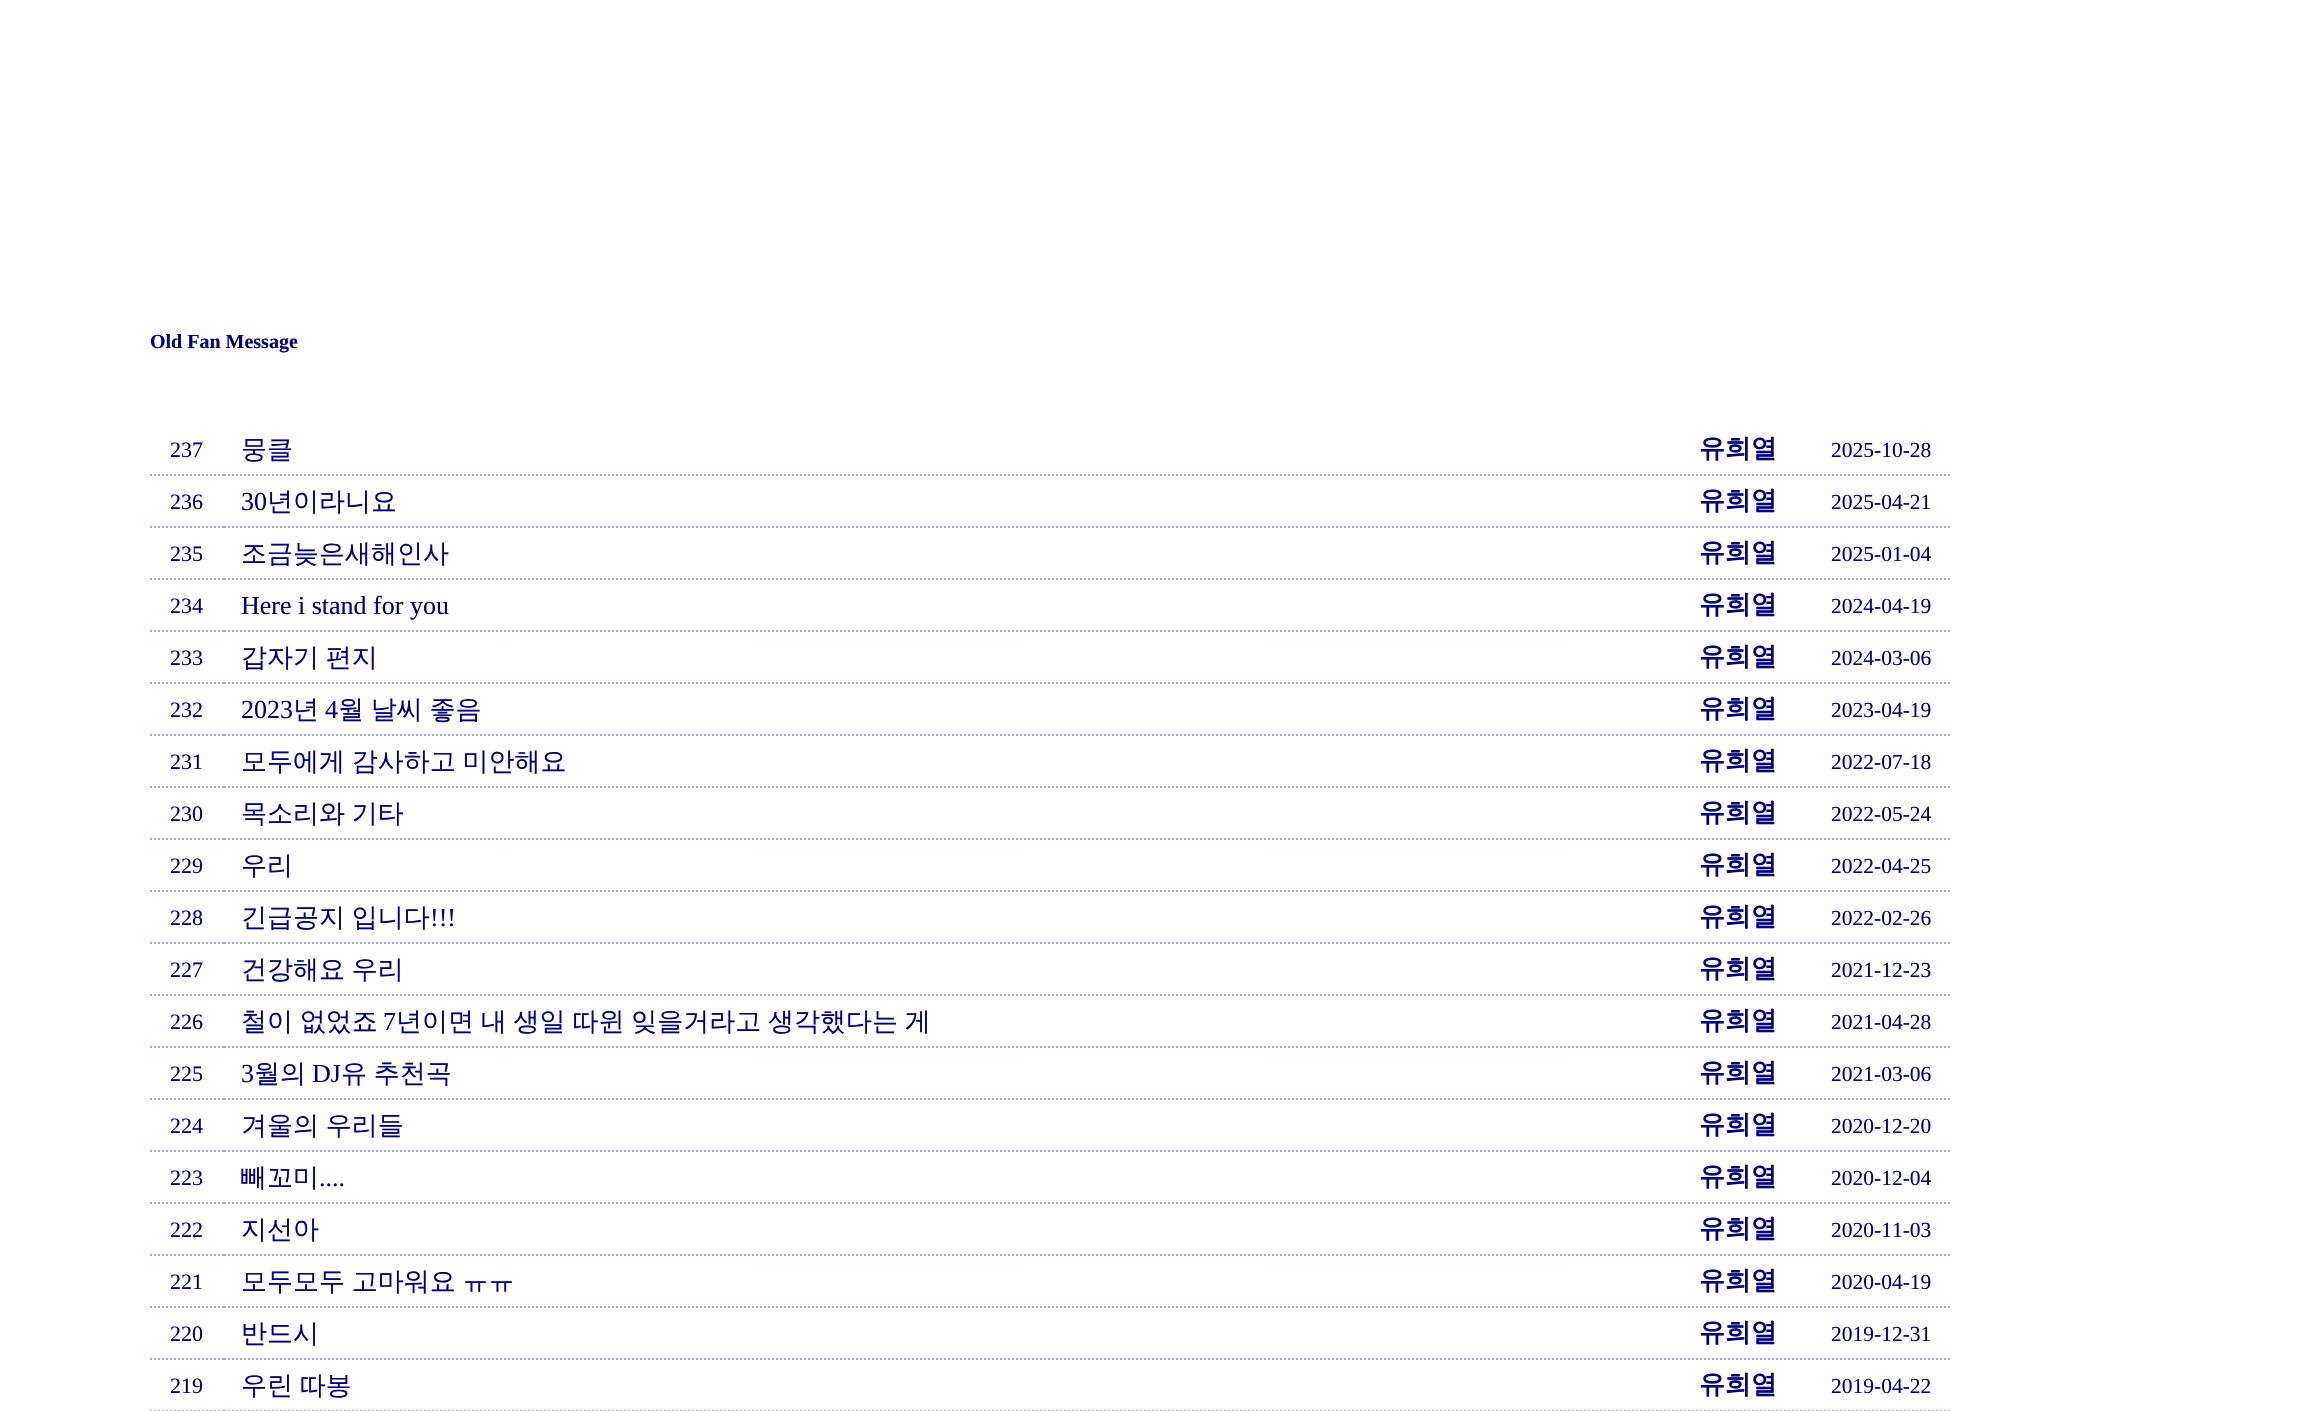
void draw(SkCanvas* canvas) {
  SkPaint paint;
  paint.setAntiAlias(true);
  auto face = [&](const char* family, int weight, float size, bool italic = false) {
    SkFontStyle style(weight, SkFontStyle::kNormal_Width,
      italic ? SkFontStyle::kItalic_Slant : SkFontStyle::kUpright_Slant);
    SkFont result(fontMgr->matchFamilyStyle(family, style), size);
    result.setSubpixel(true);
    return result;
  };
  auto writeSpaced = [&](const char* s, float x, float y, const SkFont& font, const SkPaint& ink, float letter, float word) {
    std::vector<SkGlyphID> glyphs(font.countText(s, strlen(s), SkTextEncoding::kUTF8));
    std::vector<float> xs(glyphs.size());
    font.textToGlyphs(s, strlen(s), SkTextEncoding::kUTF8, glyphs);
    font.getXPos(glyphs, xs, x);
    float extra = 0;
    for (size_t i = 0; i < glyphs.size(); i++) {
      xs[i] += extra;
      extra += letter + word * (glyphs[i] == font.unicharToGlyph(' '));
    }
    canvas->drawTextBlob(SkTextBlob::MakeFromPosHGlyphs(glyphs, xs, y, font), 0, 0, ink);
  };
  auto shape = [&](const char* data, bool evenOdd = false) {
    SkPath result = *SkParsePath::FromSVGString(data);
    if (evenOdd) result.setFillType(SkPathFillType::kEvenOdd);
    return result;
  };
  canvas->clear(0xffffffff);
  paint.setStroke(true);
  paint.setStrokeWidth(2);
  paint.setColor(0xff94aad6);
  paint.setPathEffect(SkDashPathEffect::Make({{2, 2}}, 0));
  canvas->drawPath(shape("M150 475H224"), paint);
  paint.setPathEffect(nullptr);
  paint.setPathEffect(SkDashPathEffect::Make({{2, 2}}, 0));
  canvas->drawPath(shape("M236 475H1564"), paint);
  paint.setPathEffect(nullptr);
  paint.setPathEffect(SkDashPathEffect::Make({{2, 2}}, 0));
  canvas->drawPath(shape("M1564 475H1824"), paint);
  paint.setPathEffect(nullptr);
  paint.setPathEffect(SkDashPathEffect::Make({{2, 2}}, 0));
  canvas->drawPath(shape("M1824 475H1950"), paint);
  paint.setPathEffect(nullptr);
  canvas->drawPath(shape("M224 475H226M228 475H230M232 475H234"), paint);
  paint.setPathEffect(SkDashPathEffect::Make({{2, 2}}, 0));
  canvas->drawPath(shape("M150 527H224"), paint);
  paint.setPathEffect(nullptr);
  paint.setPathEffect(SkDashPathEffect::Make({{2, 2}}, 0));
  canvas->drawPath(shape("M236 527H1564"), paint);
  paint.setPathEffect(nullptr);
  paint.setPathEffect(SkDashPathEffect::Make({{2, 2}}, 0));
  canvas->drawPath(shape("M1564 527H1824"), paint);
  paint.setPathEffect(nullptr);
  paint.setPathEffect(SkDashPathEffect::Make({{2, 2}}, 0));
  canvas->drawPath(shape("M1824 527H1950"), paint);
  paint.setPathEffect(nullptr);
  canvas->drawPath(shape("M224 527H226M228 527H230M232 527H234"), paint);
  paint.setPathEffect(SkDashPathEffect::Make({{2, 2}}, 0));
  canvas->drawPath(shape("M150 579H224"), paint);
  paint.setPathEffect(nullptr);
  paint.setPathEffect(SkDashPathEffect::Make({{2, 2}}, 0));
  canvas->drawPath(shape("M236 579H1564"), paint);
  paint.setPathEffect(nullptr);
  paint.setPathEffect(SkDashPathEffect::Make({{2, 2}}, 0));
  canvas->drawPath(shape("M1564 579H1824"), paint);
  paint.setPathEffect(nullptr);
  paint.setPathEffect(SkDashPathEffect::Make({{2, 2}}, 0));
  canvas->drawPath(shape("M1824 579H1950"), paint);
  paint.setPathEffect(nullptr);
  canvas->drawPath(shape("M224 579H226M228 579H230M232 579H234"), paint);
  paint.setPathEffect(SkDashPathEffect::Make({{2, 2}}, 0));
  canvas->drawPath(shape("M150 631H224"), paint);
  paint.setPathEffect(nullptr);
  paint.setPathEffect(SkDashPathEffect::Make({{2, 2}}, 0));
  canvas->drawPath(shape("M236 631H1564"), paint);
  paint.setPathEffect(nullptr);
  paint.setPathEffect(SkDashPathEffect::Make({{2, 2}}, 0));
  canvas->drawPath(shape("M1564 631H1824"), paint);
  paint.setPathEffect(nullptr);
  paint.setPathEffect(SkDashPathEffect::Make({{2, 2}}, 0));
  canvas->drawPath(shape("M1824 631H1950"), paint);
  paint.setPathEffect(nullptr);
  canvas->drawPath(shape("M224 631H226M228 631H230M232 631H234"), paint);
  paint.setPathEffect(SkDashPathEffect::Make({{2, 2}}, 0));
  canvas->drawPath(shape("M150 683H224"), paint);
  paint.setPathEffect(nullptr);
  paint.setPathEffect(SkDashPathEffect::Make({{2, 2}}, 0));
  canvas->drawPath(shape("M236 683H1564"), paint);
  paint.setPathEffect(nullptr);
  paint.setPathEffect(SkDashPathEffect::Make({{2, 2}}, 0));
  canvas->drawPath(shape("M1564 683H1824"), paint);
  paint.setPathEffect(nullptr);
  paint.setPathEffect(SkDashPathEffect::Make({{2, 2}}, 0));
  canvas->drawPath(shape("M1824 683H1950"), paint);
  paint.setPathEffect(nullptr);
  canvas->drawPath(shape("M224 683H226M228 683H230M232 683H234"), paint);
  paint.setPathEffect(SkDashPathEffect::Make({{2, 2}}, 0));
  canvas->drawPath(shape("M150 735H224"), paint);
  paint.setPathEffect(nullptr);
  paint.setPathEffect(SkDashPathEffect::Make({{2, 2}}, 0));
  canvas->drawPath(shape("M236 735H1564"), paint);
  paint.setPathEffect(nullptr);
  paint.setPathEffect(SkDashPathEffect::Make({{2, 2}}, 0));
  canvas->drawPath(shape("M1564 735H1824"), paint);
  paint.setPathEffect(nullptr);
  paint.setPathEffect(SkDashPathEffect::Make({{2, 2}}, 0));
  canvas->drawPath(shape("M1824 735H1950"), paint);
  paint.setPathEffect(nullptr);
  canvas->drawPath(shape("M224 735H226M228 735H230M232 735H234"), paint);
  paint.setPathEffect(SkDashPathEffect::Make({{2, 2}}, 0));
  canvas->drawPath(shape("M150 787H224"), paint);
  paint.setPathEffect(nullptr);
  paint.setPathEffect(SkDashPathEffect::Make({{2, 2}}, 0));
  canvas->drawPath(shape("M236 787H1564"), paint);
  paint.setPathEffect(nullptr);
  paint.setPathEffect(SkDashPathEffect::Make({{2, 2}}, 0));
  canvas->drawPath(shape("M1564 787H1824"), paint);
  paint.setPathEffect(nullptr);
  paint.setPathEffect(SkDashPathEffect::Make({{2, 2}}, 0));
  canvas->drawPath(shape("M1824 787H1950"), paint);
  paint.setPathEffect(nullptr);
  canvas->drawPath(shape("M224 787H226M228 787H230M232 787H234"), paint);
  paint.setPathEffect(SkDashPathEffect::Make({{2, 2}}, 0));
  canvas->drawPath(shape("M150 839H224"), paint);
  paint.setPathEffect(nullptr);
  paint.setPathEffect(SkDashPathEffect::Make({{2, 2}}, 0));
  canvas->drawPath(shape("M236 839H1564"), paint);
  paint.setPathEffect(nullptr);
  paint.setPathEffect(SkDashPathEffect::Make({{2, 2}}, 0));
  canvas->drawPath(shape("M1564 839H1824"), paint);
  paint.setPathEffect(nullptr);
  paint.setPathEffect(SkDashPathEffect::Make({{2, 2}}, 0));
  canvas->drawPath(shape("M1824 839H1950"), paint);
  paint.setPathEffect(nullptr);
  canvas->drawPath(shape("M224 839H226M228 839H230M232 839H234"), paint);
  paint.setPathEffect(SkDashPathEffect::Make({{2, 2}}, 0));
  canvas->drawPath(shape("M150 891H224"), paint);
  paint.setPathEffect(nullptr);
  paint.setPathEffect(SkDashPathEffect::Make({{2, 2}}, 0));
  canvas->drawPath(shape("M236 891H1564"), paint);
  paint.setPathEffect(nullptr);
  paint.setPathEffect(SkDashPathEffect::Make({{2, 2}}, 0));
  canvas->drawPath(shape("M1564 891H1824"), paint);
  paint.setPathEffect(nullptr);
  paint.setPathEffect(SkDashPathEffect::Make({{2, 2}}, 0));
  canvas->drawPath(shape("M1824 891H1950"), paint);
  paint.setPathEffect(nullptr);
  canvas->drawPath(shape("M224 891H226M228 891H230M232 891H234"), paint);
  paint.setPathEffect(SkDashPathEffect::Make({{2, 2}}, 0));
  canvas->drawPath(shape("M150 943H224"), paint);
  paint.setPathEffect(nullptr);
  paint.setPathEffect(SkDashPathEffect::Make({{2, 2}}, 0));
  canvas->drawPath(shape("M236 943H1564"), paint);
  paint.setPathEffect(nullptr);
  paint.setPathEffect(SkDashPathEffect::Make({{2, 2}}, 0));
  canvas->drawPath(shape("M1564 943H1824"), paint);
  paint.setPathEffect(nullptr);
  paint.setPathEffect(SkDashPathEffect::Make({{2, 2}}, 0));
  canvas->drawPath(shape("M1824 943H1950"), paint);
  paint.setPathEffect(nullptr);
  canvas->drawPath(shape("M224 943H226M228 943H230M232 943H234"), paint);
  paint.setPathEffect(SkDashPathEffect::Make({{2, 2}}, 0));
  canvas->drawPath(shape("M150 995H224"), paint);
  paint.setPathEffect(nullptr);
  paint.setPathEffect(SkDashPathEffect::Make({{2, 2}}, 0));
  canvas->drawPath(shape("M236 995H1564"), paint);
  paint.setPathEffect(nullptr);
  paint.setPathEffect(SkDashPathEffect::Make({{2, 2}}, 0));
  canvas->drawPath(shape("M1564 995H1824"), paint);
  paint.setPathEffect(nullptr);
  paint.setPathEffect(SkDashPathEffect::Make({{2, 2}}, 0));
  canvas->drawPath(shape("M1824 995H1950"), paint);
  paint.setPathEffect(nullptr);
  canvas->drawPath(shape("M224 995H226M228 995H230M232 995H234"), paint);
  paint.setPathEffect(SkDashPathEffect::Make({{2, 2}}, 0));
  canvas->drawPath(shape("M150 1047H224"), paint);
  paint.setPathEffect(nullptr);
  paint.setPathEffect(SkDashPathEffect::Make({{2, 2}}, 0));
  canvas->drawPath(shape("M236 1047H1564"), paint);
  paint.setPathEffect(nullptr);
  paint.setPathEffect(SkDashPathEffect::Make({{2, 2}}, 0));
  canvas->drawPath(shape("M1564 1047H1824"), paint);
  paint.setPathEffect(nullptr);
  paint.setPathEffect(SkDashPathEffect::Make({{2, 2}}, 0));
  canvas->drawPath(shape("M1824 1047H1950"), paint);
  paint.setPathEffect(nullptr);
  canvas->drawPath(shape("M224 1047H226M228 1047H230M232 1047H234"), paint);
  paint.setPathEffect(SkDashPathEffect::Make({{2, 2}}, 0));
  canvas->drawPath(shape("M150 1099H224"), paint);
  paint.setPathEffect(nullptr);
  paint.setPathEffect(SkDashPathEffect::Make({{2, 2}}, 0));
  canvas->drawPath(shape("M236 1099H1564"), paint);
  paint.setPathEffect(nullptr);
  paint.setPathEffect(SkDashPathEffect::Make({{2, 2}}, 0));
  canvas->drawPath(shape("M1564 1099H1824"), paint);
  paint.setPathEffect(nullptr);
  paint.setPathEffect(SkDashPathEffect::Make({{2, 2}}, 0));
  canvas->drawPath(shape("M1824 1099H1950"), paint);
  paint.setPathEffect(nullptr);
  canvas->drawPath(shape("M224 1099H226M228 1099H230M232 1099H234"), paint);
  paint.setPathEffect(SkDashPathEffect::Make({{2, 2}}, 0));
  canvas->drawPath(shape("M150 1151H224"), paint);
  paint.setPathEffect(nullptr);
  paint.setPathEffect(SkDashPathEffect::Make({{2, 2}}, 0));
  canvas->drawPath(shape("M236 1151H1564"), paint);
  paint.setPathEffect(nullptr);
  paint.setPathEffect(SkDashPathEffect::Make({{2, 2}}, 0));
  canvas->drawPath(shape("M1564 1151H1824"), paint);
  paint.setPathEffect(nullptr);
  paint.setPathEffect(SkDashPathEffect::Make({{2, 2}}, 0));
  canvas->drawPath(shape("M1824 1151H1950"), paint);
  paint.setPathEffect(nullptr);
  canvas->drawPath(shape("M224 1151H226M228 1151H230M232 1151H234"), paint);
  paint.setPathEffect(SkDashPathEffect::Make({{2, 2}}, 0));
  canvas->drawPath(shape("M150 1203H224"), paint);
  paint.setPathEffect(nullptr);
  paint.setPathEffect(SkDashPathEffect::Make({{2, 2}}, 0));
  canvas->drawPath(shape("M236 1203H1564"), paint);
  paint.setPathEffect(nullptr);
  paint.setPathEffect(SkDashPathEffect::Make({{2, 2}}, 0));
  canvas->drawPath(shape("M1564 1203H1824"), paint);
  paint.setPathEffect(nullptr);
  paint.setPathEffect(SkDashPathEffect::Make({{2, 2}}, 0));
  canvas->drawPath(shape("M1824 1203H1950"), paint);
  paint.setPathEffect(nullptr);
  canvas->drawPath(shape("M224 1203H226M228 1203H230M232 1203H234"), paint);
  paint.setPathEffect(SkDashPathEffect::Make({{2, 2}}, 0));
  canvas->drawPath(shape("M150 1255H224"), paint);
  paint.setPathEffect(nullptr);
  paint.setPathEffect(SkDashPathEffect::Make({{2, 2}}, 0));
  canvas->drawPath(shape("M236 1255H1564"), paint);
  paint.setPathEffect(nullptr);
  paint.setPathEffect(SkDashPathEffect::Make({{2, 2}}, 0));
  canvas->drawPath(shape("M1564 1255H1824"), paint);
  paint.setPathEffect(nullptr);
  paint.setPathEffect(SkDashPathEffect::Make({{2, 2}}, 0));
  canvas->drawPath(shape("M1824 1255H1950"), paint);
  paint.setPathEffect(nullptr);
  canvas->drawPath(shape("M224 1255H226M228 1255H230M232 1255H234"), paint);
  paint.setPathEffect(SkDashPathEffect::Make({{2, 2}}, 0));
  canvas->drawPath(shape("M150 1307H224"), paint);
  paint.setPathEffect(nullptr);
  paint.setPathEffect(SkDashPathEffect::Make({{2, 2}}, 0));
  canvas->drawPath(shape("M236 1307H1564"), paint);
  paint.setPathEffect(nullptr);
  paint.setPathEffect(SkDashPathEffect::Make({{2, 2}}, 0));
  canvas->drawPath(shape("M1564 1307H1824"), paint);
  paint.setPathEffect(nullptr);
  paint.setPathEffect(SkDashPathEffect::Make({{2, 2}}, 0));
  canvas->drawPath(shape("M1824 1307H1950"), paint);
  paint.setPathEffect(nullptr);
  canvas->drawPath(shape("M224 1307H226M228 1307H230M232 1307H234"), paint);
  paint.setPathEffect(SkDashPathEffect::Make({{2, 2}}, 0));
  canvas->drawPath(shape("M150 1359H224"), paint);
  paint.setPathEffect(nullptr);
  paint.setPathEffect(SkDashPathEffect::Make({{2, 2}}, 0));
  canvas->drawPath(shape("M236 1359H1564"), paint);
  paint.setPathEffect(nullptr);
  paint.setPathEffect(SkDashPathEffect::Make({{2, 2}}, 0));
  canvas->drawPath(shape("M1564 1359H1824"), paint);
  paint.setPathEffect(nullptr);
  paint.setPathEffect(SkDashPathEffect::Make({{2, 2}}, 0));
  canvas->drawPath(shape("M1824 1359H1950"), paint);
  paint.setPathEffect(nullptr);
  canvas->drawPath(shape("M224 1359H226M228 1359H230M232 1359H234"), paint);
  paint.setPathEffect(SkDashPathEffect::Make({{2, 2}}, 0));
  canvas->drawPath(shape("M150 1411H224"), paint);
  paint.setPathEffect(nullptr);
  paint.setPathEffect(SkDashPathEffect::Make({{2, 2}}, 0));
  canvas->drawPath(shape("M236 1411H1564"), paint);
  paint.setPathEffect(nullptr);
  paint.setPathEffect(SkDashPathEffect::Make({{2, 2}}, 0));
  canvas->drawPath(shape("M1564 1411H1824"), paint);
  paint.setPathEffect(nullptr);
  paint.setPathEffect(SkDashPathEffect::Make({{2, 2}}, 0));
  canvas->drawPath(shape("M1824 1411H1950"), paint);
  paint.setPathEffect(nullptr);
  canvas->drawPath(shape("M224 1411H226M228 1411H230M232 1411H234"), paint);
  auto f0 = face("Liberation Serif", 700, 20);
  paint.setStroke(false);
  paint.setColor(0xff000080);
  canvas->drawString("Old Fan Message", 150, 348, f0, paint);
  auto f1 = face("Liberation Serif", 400, 22);
  canvas->drawString("237", 170, 457, f1, paint);
  auto f2 = face("WenQuanYi Zen Hei", 500, 26);
  canvas->drawString("뭉클", 241, 458, f2, paint);
  auto f3 = face("WenQuanYi Zen Hei", 700, 26);
  canvas->drawString("유희열", 1699, 457, f3, paint);
  auto f4 = face("Liberation Serif", 400, 21.5f);
  canvas->drawString("2025-10-28", 1831, 457, f4, paint);
  canvas->drawString("236", 170, 509, f1, paint);
  auto f5 = face("Liberation Serif", 400, 26);
  canvas->drawString("30", 241, 510, f5, paint);
  canvas->drawString("년이라니요", 267, 510, f2, paint);
  canvas->drawString("유희열", 1699, 509, f3, paint);
  canvas->drawString("2025-04-21", 1831, 509, f4, paint);
  canvas->drawString("235", 170, 561, f1, paint);
  canvas->drawString("조금늦은새해인사", 241, 562, f2, paint);
  canvas->drawString("유희열", 1699, 561, f3, paint);
  canvas->drawString("2025-01-04", 1831, 561, f4, paint);
  canvas->drawString("234", 170, 613, f1, paint);
  canvas->drawString("Here i stand for you", 241, 614, f5, paint);
  canvas->drawString("유희열", 1699, 613, f3, paint);
  canvas->drawString("2024-04-19", 1831, 613, f4, paint);
  canvas->drawString("233", 170, 665, f1, paint);
  writeSpaced("갑자기 편지", 241, 666, f2, paint, 0, -1);
  canvas->drawString("유희열", 1699, 665, f3, paint);
  canvas->drawString("2024-03-06", 1831, 665, f4, paint);
  canvas->drawString("232", 170, 717, f1, paint);
  canvas->drawString("2023", 241, 718, f5, paint);
  canvas->drawString("년", 293, 718, f2, paint);
  canvas->drawString("4", 325, 718, f5, paint);
  writeSpaced("월 날씨 좋음", 338, 718, f2, paint, 0, -1);
  canvas->drawString("유희열", 1699, 717, f3, paint);
  canvas->drawString("2023-04-19", 1831, 717, f4, paint);
  canvas->drawString("231", 170, 769, f1, paint);
  writeSpaced("모두에게 감사하고 미안해요", 241, 770, f2, paint, 0, -1);
  canvas->drawString("유희열", 1699, 769, f3, paint);
  canvas->drawString("2022-07-18", 1831, 769, f4, paint);
  canvas->drawString("230", 170, 821, f1, paint);
  writeSpaced("목소리와 기타", 241, 822, f2, paint, 0, -1);
  canvas->drawString("유희열", 1699, 821, f3, paint);
  canvas->drawString("2022-05-24", 1831, 821, f4, paint);
  canvas->drawString("229", 170, 873, f1, paint);
  canvas->drawString("우리", 241, 874, f2, paint);
  canvas->drawString("유희열", 1699, 873, f3, paint);
  canvas->drawString("2022-04-25", 1831, 873, f4, paint);
  canvas->drawString("228", 170, 925, f1, paint);
  writeSpaced("긴급공지 입니다", 241, 926, f2, paint, 0, -1);
  canvas->drawString("!!!", 430, 926, f5, paint);
  canvas->drawString("유희열", 1699, 925, f3, paint);
  canvas->drawString("2022-02-26", 1831, 925, f4, paint);
  canvas->drawString("227", 170, 977, f1, paint);
  writeSpaced("건강해요 우리", 241, 978, f2, paint, 0, -1);
  canvas->drawString("유희열", 1699, 977, f3, paint);
  canvas->drawString("2021-12-23", 1831, 977, f4, paint);
  canvas->drawString("226", 170, 1029, f1, paint);
  writeSpaced("철이 없었죠", 241, 1030, f2, paint, 0, -1);
  canvas->drawString("7", 383, 1030, f5, paint);
  writeSpaced("년이면 내 생일 따윈 잊을거라고 생각했다는 게", 396, 1030, f2, paint, 0, -1);
  canvas->drawString("유희열", 1699, 1029, f3, paint);
  canvas->drawString("2021-04-28", 1831, 1029, f4, paint);
  canvas->drawString("225", 170, 1081, f1, paint);
  canvas->drawString("3", 241, 1082, f5, paint);
  canvas->drawString("월의", 254, 1082, f2, paint);
  canvas->drawString("DJ", 312, 1082, f5, paint);
  writeSpaced("유 추천곡", 341, 1082, f2, paint, 0, -1);
  canvas->drawString("유희열", 1699, 1081, f3, paint);
  canvas->drawString("2021-03-06", 1831, 1081, f4, paint);
  canvas->drawString("224", 170, 1133, f1, paint);
  writeSpaced("겨울의 우리들", 241, 1134, f2, paint, 0, -1);
  canvas->drawString("유희열", 1699, 1133, f3, paint);
  canvas->drawString("2020-12-20", 1831, 1133, f4, paint);
  canvas->drawString("223", 170, 1185, f1, paint);
  canvas->drawString("빼꼬미", 241, 1186, f2, paint);
  canvas->drawString("....", 319, 1186, f5, paint);
  canvas->drawString("유희열", 1699, 1185, f3, paint);
  canvas->drawString("2020-12-04", 1831, 1185, f4, paint);
  canvas->drawString("222", 170, 1237, f1, paint);
  canvas->drawString("지선아", 241, 1238, f2, paint);
  canvas->drawString("유희열", 1699, 1237, f3, paint);
  canvas->drawString("2020-11-03", 1831, 1237, f4, paint);
  canvas->drawString("221", 170, 1289, f1, paint);
  writeSpaced("모두모두 고마워요 ㅠㅠ", 241, 1290, f2, paint, 0, -1);
  canvas->drawString("유희열", 1699, 1289, f3, paint);
  canvas->drawString("2020-04-19", 1831, 1289, f4, paint);
  canvas->drawString("220", 170, 1341, f1, paint);
  canvas->drawString("반드시", 241, 1342, f2, paint);
  canvas->drawString("유희열", 1699, 1341, f3, paint);
  canvas->drawString("2019-12-31", 1831, 1341, f4, paint);
  canvas->drawString("219", 170, 1393, f1, paint);
  writeSpaced("우린 따봉", 241, 1394, f2, paint, 0, -1);
  canvas->drawString("유희열", 1699, 1393, f3, paint);
  canvas->drawString("2019-04-22", 1831, 1393, f4, paint);
}
